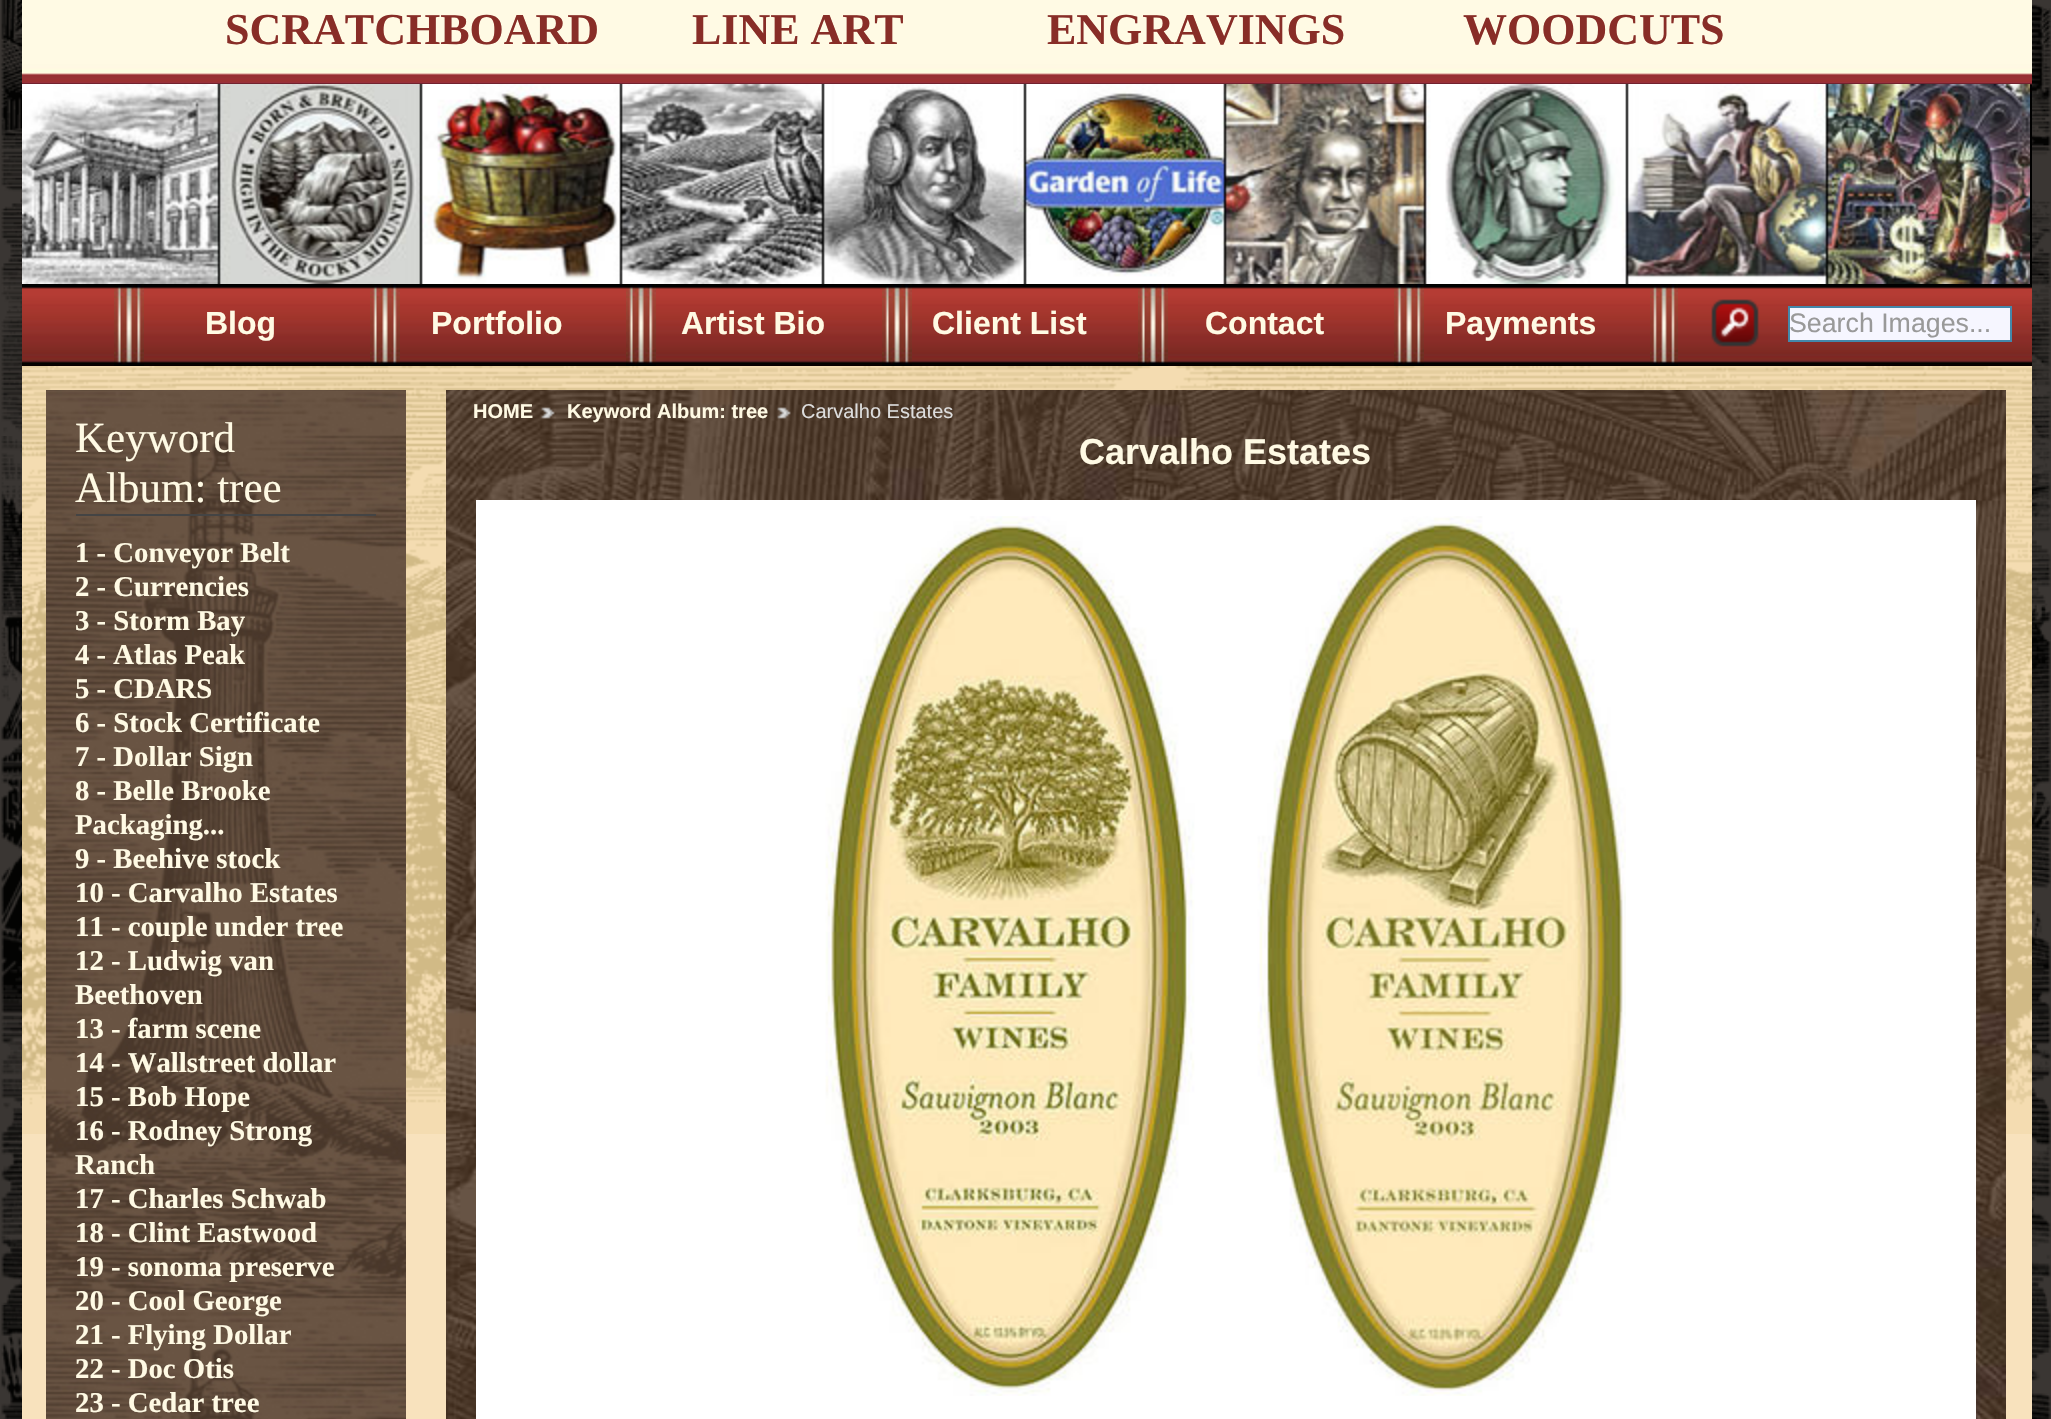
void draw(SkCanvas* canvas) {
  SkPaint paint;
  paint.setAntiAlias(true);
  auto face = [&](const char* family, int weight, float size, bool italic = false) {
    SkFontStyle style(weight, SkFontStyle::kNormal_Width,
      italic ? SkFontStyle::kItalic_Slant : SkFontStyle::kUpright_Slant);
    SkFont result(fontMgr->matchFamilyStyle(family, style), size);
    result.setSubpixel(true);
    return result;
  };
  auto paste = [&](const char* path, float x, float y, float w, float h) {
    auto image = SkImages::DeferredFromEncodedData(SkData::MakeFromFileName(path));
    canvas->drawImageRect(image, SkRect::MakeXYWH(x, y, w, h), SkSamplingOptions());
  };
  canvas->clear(0xffffffff);
  paste("img/1.png", 0, 0, 2051, 1419);
  paste("img/2.png", 22, 0, 2010, 366);
  paste("img/3.png", 22, 84, 2008, 200);
  paste("img/4.png", 114, 284, 30, 82);
  paste("img/4.png", 370, 284, 30, 82);
  paste("img/4.png", 626, 284, 30, 82);
  paste("img/4.png", 882, 284, 30, 82);
  paste("img/4.png", 1138, 284, 30, 82);
  paste("img/5.png", 1394, 284, 30, 82);
  paste("img/6.png", 1650, 284, 28, 82);
  paste("img/7.png", 1711, 299, 48, 48);
  paint.setColor(0xfff6f6ff);
  canvas->drawRect(SkRect::MakeXYWH(1789, 307, 222, 34), paint);
  paint.setStroke(true);
  paint.setStrokeWidth(2);
  paint.setColor(0xff4488aa);
  canvas->drawRect(SkRect::MakeXYWH(1789, 307, 222, 34), paint);
  paint.setStroke(false);
  paint.setColor(0xfff8e2bd);
  canvas->drawRect(SkRect::MakeXYWH(22, 1134, 2010, 285), paint);
  paste("img/8.png", 22, 366, 2010, 768);
  paste("img/9.png", 46, 390, 360, 1029);
  paint.setColor(0xff444444);
  canvas->drawRect(SkRect::MakeXYWH(76, 514, 300, 2), paint);
  paste("img/10.png", 446, 390, 1560, 1029);
  paste("img/11.png", 541, 407, 14, 12);
  paste("img/12.png", 777, 407, 14, 12);
  paint.setColor(0xffffffff);
  canvas->drawRect(SkRect::MakeXYWH(476, 500, 1500, 919), paint);
  paste("img/13.png", 825, 516, 801, 880);
  auto f0 = face("Liberation Serif", 700, 44);
  paint.setColor(0xff882d27);
  {
    const struct { const char* s; float x, y; } items[] = {
      {"SCRATCHBOARD", 225, 44},
      {"LINE ART", 692, 44},
      {"ENGRAVINGS", 1047, 44},
      {"WOODCUTS", 1463, 44},
    };
    for (auto [s, x, y] : items) {
      canvas->drawString(s, x, y, f0, paint);
    }
  }
  auto f1 = face("Liberation Sans", 700, 32);
  paint.setColor(0xfffffae4);
  {
    const struct { const char* s; float x, y; } items[] = {
      {"Blog", 205, 334},
      {"Portfolio", 431, 334},
      {"Artist Bio", 681, 334},
      {"Client List", 932, 334},
      {"Contact", 1205, 334},
      {"Payments", 1445, 334},
    };
    for (auto [s, x, y] : items) {
      canvas->drawString(s, x, y, f1, paint);
    }
  }
  auto f2 = face("Liberation Sans", 400, 26.75f);
  paint.setColor(0xff999999);
  canvas->drawString("Search Images...", 1789, 332, f2, paint);
  auto f3 = face("Liberation Serif", 400, 43);
  paint.setColor(0xfffffae4);
  canvas->drawString("Keyword", 75, 452, f3, paint);
  canvas->drawString("Album: tree", 75, 502, f3, paint);
  auto f4 = face("Liberation Serif", 700, 28.75f);
  {
    const struct { const char* s; float x, y; } items[] = {
      {"1 - Conveyor Belt", 75, 562},
      {"2 - Currencies", 75, 596},
      {"3 - Storm Bay", 75, 630},
      {"4 - Atlas Peak", 75, 664},
      {"5 - CDARS", 75, 698},
      {"6 - Stock Certificate", 75, 732},
      {"7 - Dollar Sign", 75, 766},
      {"8 - Belle Brooke", 75, 800},
      {"Packaging...", 75, 834},
      {"9 - Beehive stock", 75, 868},
      {"10 - Carvalho Estates", 75, 902},
      {"11 - couple under tree", 75, 936},
      {"12 - Ludwig van", 75, 970},
      {"Beethoven", 75, 1004},
      {"13 - farm scene", 75, 1038},
      {"14 - Wallstreet dollar", 75, 1072},
      {"15 - Bob Hope", 75, 1106},
      {"16 - Rodney Strong", 75, 1140},
      {"Ranch", 75, 1174},
      {"17 - Charles Schwab", 75, 1208},
      {"18 - Clint Eastwood", 75, 1242},
      {"19 - sonoma preserve", 75, 1276},
      {"20 - Cool George", 75, 1310},
      {"21 - Flying Dollar", 75, 1344},
      {"22 - Doc Otis", 75, 1378},
      {"23 - Cedar tree", 75, 1412},
    };
    for (auto [s, x, y] : items) {
      canvas->drawString(s, x, y, f4, paint);
    }
  }
  auto f5 = face("Liberation Sans", 700, 20);
  canvas->drawString("HOME", 473, 418, f5, paint);
  canvas->drawString("Keyword Album: tree", 567, 418, f5, paint);
  auto f6 = face("Liberation Sans", 400, 20);
  paint.setColor(0xffdddddd);
  canvas->drawString("Carvalho Estates", 801, 418, f6, paint);
  auto f7 = face("Liberation Sans", 700, 36);
  paint.setColor(0xfffffae4);
  canvas->drawString("Carvalho Estates", 1079, 464, f7, paint);
}
